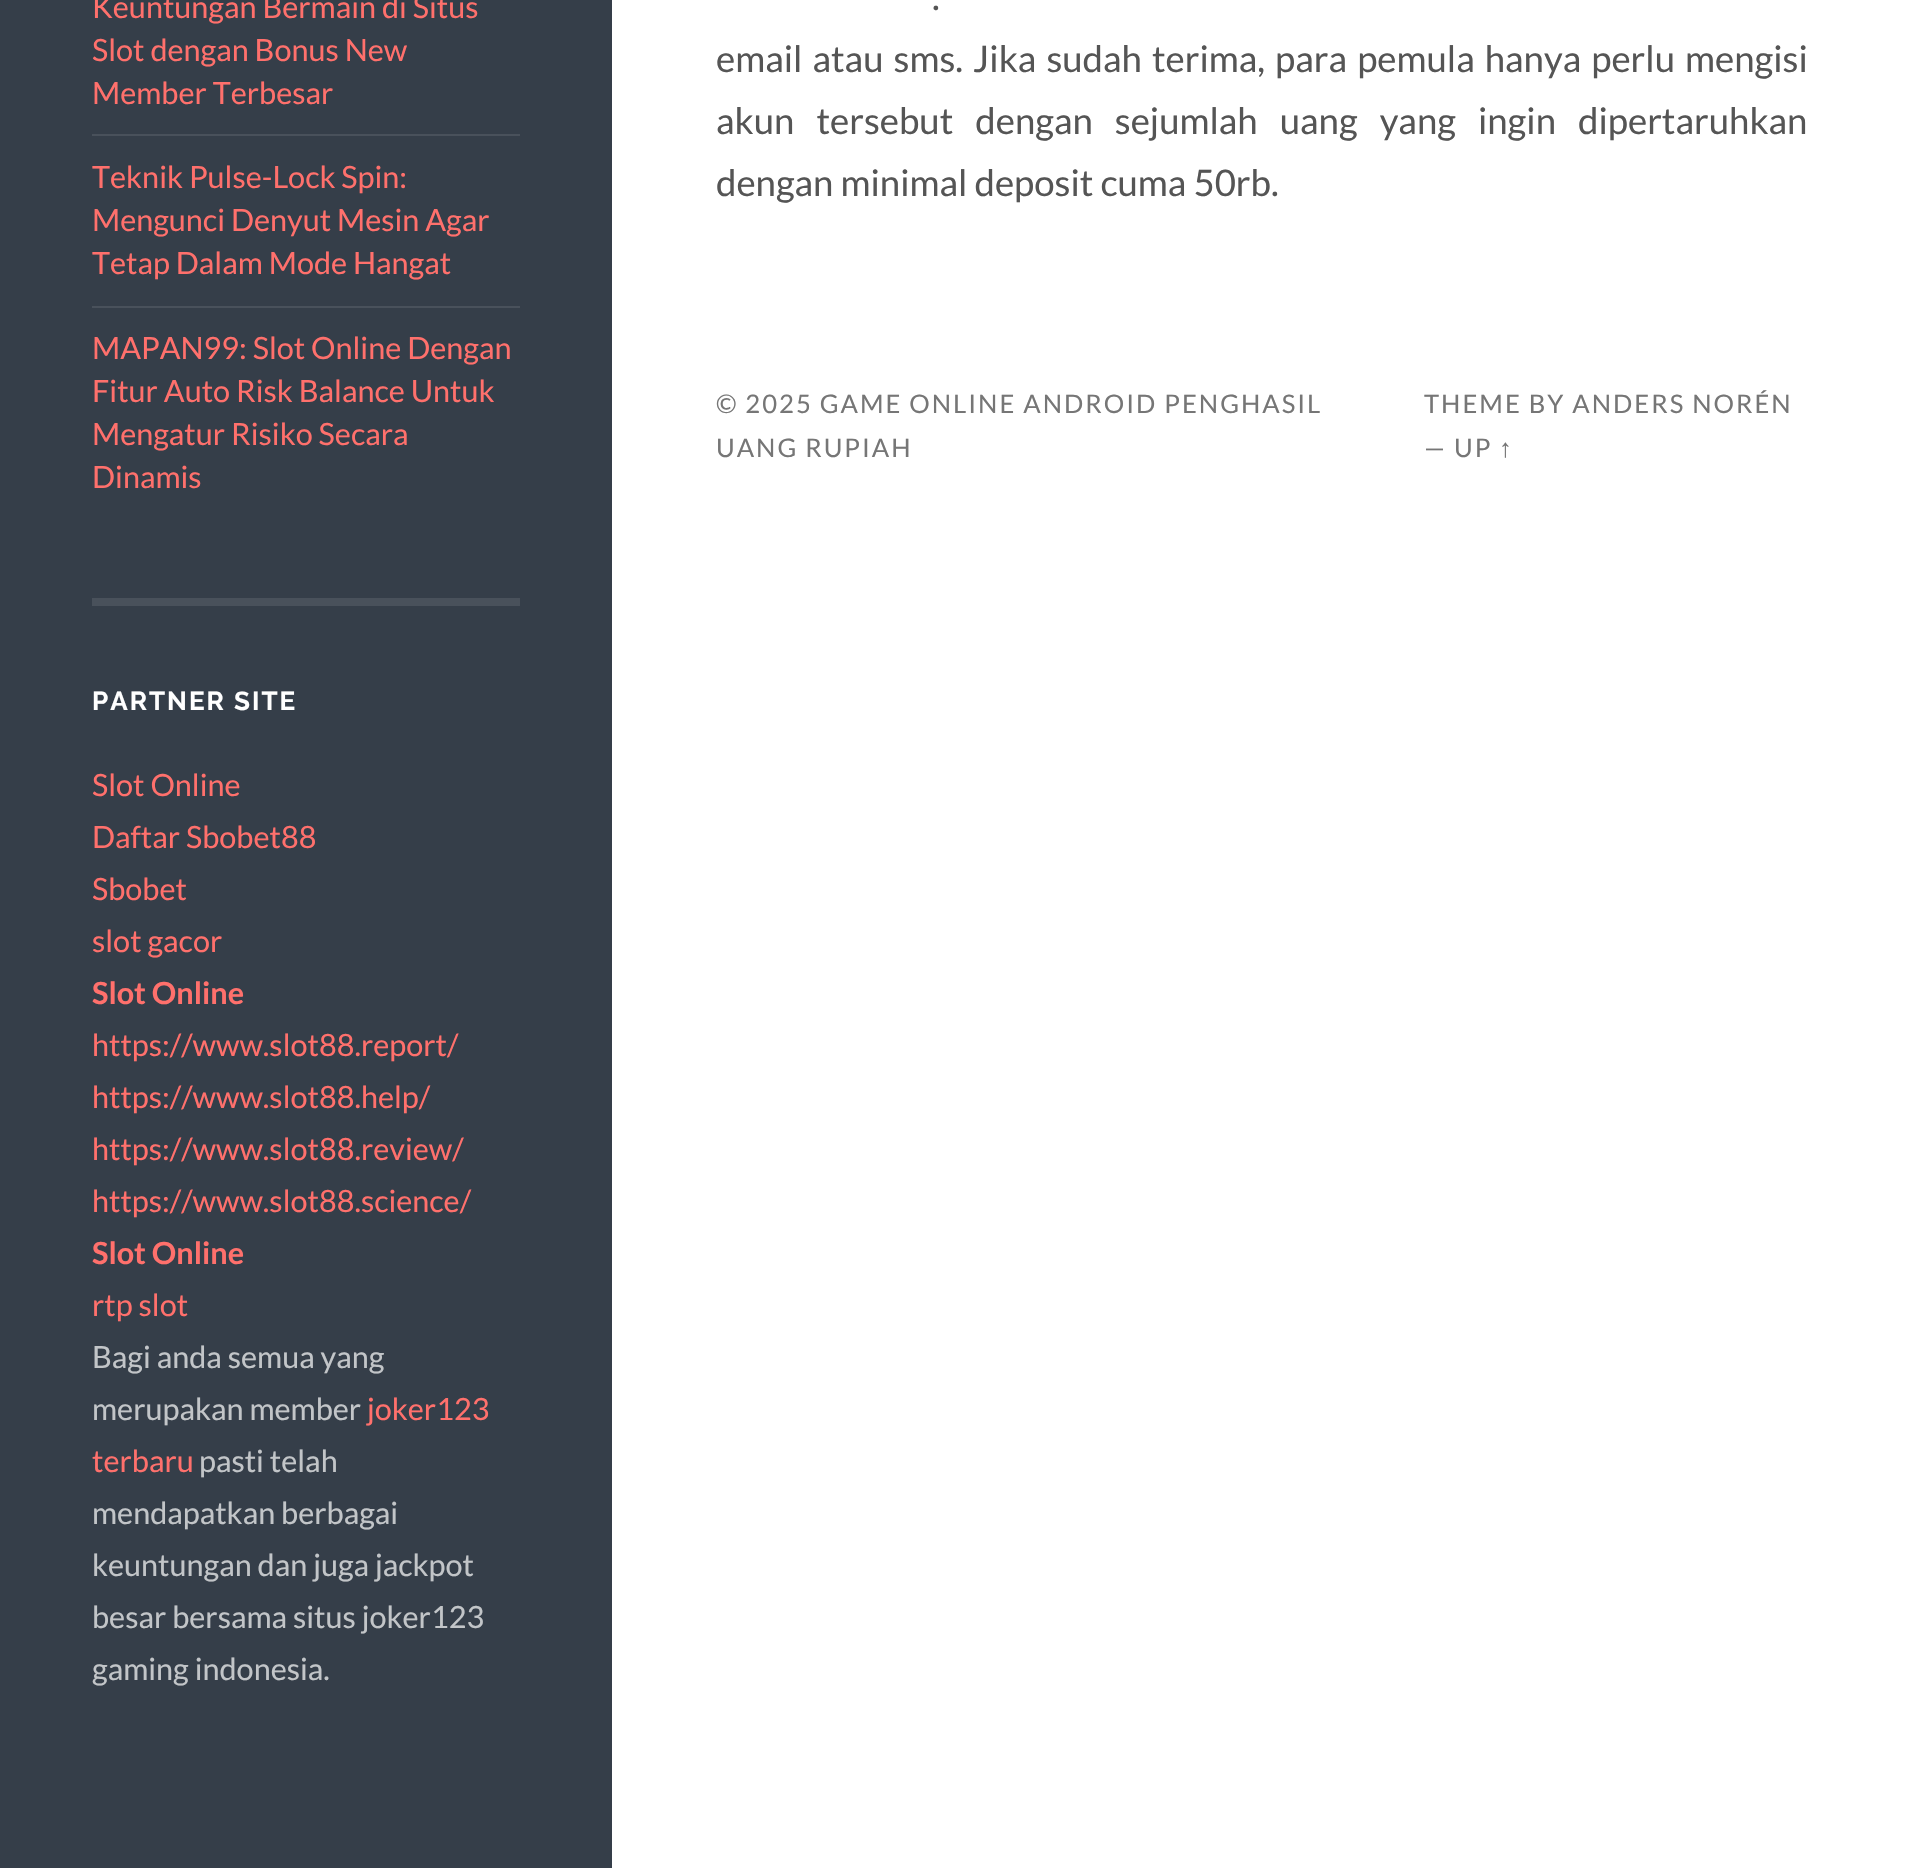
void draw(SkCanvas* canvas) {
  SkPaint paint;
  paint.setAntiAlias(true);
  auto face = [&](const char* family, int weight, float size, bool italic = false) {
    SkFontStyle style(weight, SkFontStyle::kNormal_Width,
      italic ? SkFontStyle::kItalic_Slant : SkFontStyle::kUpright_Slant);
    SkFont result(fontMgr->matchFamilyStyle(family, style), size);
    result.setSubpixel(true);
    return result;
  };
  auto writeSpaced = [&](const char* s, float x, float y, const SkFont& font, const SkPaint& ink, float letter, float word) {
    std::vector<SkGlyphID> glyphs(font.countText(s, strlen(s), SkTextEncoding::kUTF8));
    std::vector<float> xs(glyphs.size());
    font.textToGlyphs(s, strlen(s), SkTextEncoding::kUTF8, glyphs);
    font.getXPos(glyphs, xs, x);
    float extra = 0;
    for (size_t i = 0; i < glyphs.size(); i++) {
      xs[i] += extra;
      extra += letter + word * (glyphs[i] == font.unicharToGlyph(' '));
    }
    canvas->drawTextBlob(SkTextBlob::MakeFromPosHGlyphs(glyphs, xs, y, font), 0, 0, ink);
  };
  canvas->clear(0xff353e49);
  {
    const struct { float x, y, w, h; SkColor color; } items[] = {
      {92, 598, 428, 8, 0xff49515b},
      {92, 134, 428, 2, 0xff49515b},
      {92, 306, 428, 2, 0xff49515b},
      {612, 0, 1300, 1868, 0xffffffff},
    };
    for (auto [x, y, w, h, color] : items) {
      paint.setColor(color);
      canvas->drawRect(SkRect::MakeXYWH(x, y, w, h), paint);
    }
  }
  auto f0 = face("Lato", 400, 30.6f);
  paint.setColor(0xffff706c);
  {
    const struct { const char* s; float x, y; } items[] = {
      {"Keuntungan Bermain di Situs", 92, 18},
      {"Slot dengan Bonus New", 92, 61},
      {"Member Terbesar", 92, 104},
      {"Teknik Pulse-Lock Spin:", 92, 188},
      {"Mengunci Denyut Mesin Agar", 92, 231},
      {"Tetap Dalam Mode Hangat", 92, 274},
      {"MAPAN99: Slot Online Dengan", 92, 359},
      {"Fitur Auto Risk Balance Untuk", 92, 402},
      {"Mengatur Risiko Secara", 92, 445},
      {"Dinamis", 92, 488},
    };
    for (auto [s, x, y] : items) {
      canvas->drawString(s, x, y, f0, paint);
    }
  }
  auto f1 = face("Raleway", 100, 26);
  paint.setColor(0xffffffff);
  writeSpaced("PARTNER SITE", 92, 710, f1, paint, 2, 0);
  paint.setColor(0xffff706c);
  {
    const struct { const char* s; float x, y; } items[] = {
      {"Slot Online", 92, 796},
      {"Daftar Sbobet88", 92, 848},
      {"Sbobet", 92, 900},
      {"slot gacor", 92, 952},
    };
    for (auto [s, x, y] : items) {
      canvas->drawString(s, x, y, f0, paint);
    }
  }
  auto f2 = face("Lato", 700, 30.6f);
  canvas->drawString("Slot Online", 92, 1004, f2, paint);
  {
    const struct { const char* s; float x, y; } items[] = {
      {"https://www.slot88.report/", 92, 1056},
      {"https://www.slot88.help/", 92, 1108},
      {"https://www.slot88.review/", 92, 1160},
      {"https://www.slot88.science/", 92, 1212},
    };
    for (auto [s, x, y] : items) {
      canvas->drawString(s, x, y, f0, paint);
    }
  }
  canvas->drawString("Slot Online", 92, 1264, f2, paint);
  canvas->drawString("rtp slot", 92, 1316, f0, paint);
  paint.setColor(0xffc2c5c8);
  canvas->drawString("Bagi anda semua yang", 92, 1368, f0, paint);
  canvas->drawString("merupakan member", 92, 1420, f0, paint);
  paint.setColor(0xffff706c);
  canvas->drawString("joker123", 367, 1420, f0, paint);
  canvas->drawString("terbaru", 92, 1472, f0, paint);
  paint.setColor(0xffc2c5c8);
  {
    const struct { const char* s; float x, y; } items[] = {
      {"pasti telah", 199, 1472},
      {"mendapatkan berbagai", 92, 1524},
      {"keuntungan dan juga jackpot", 92, 1576},
      {"besar bersama situs joker123", 92, 1628},
      {"gaming indonesia.", 92, 1680},
    };
    for (auto [s, x, y] : items) {
      canvas->drawString(s, x, y, f0, paint);
    }
  }
  auto f3 = face("Lato", 400, 36.55f);
  paint.setColor(0xff555555);
  writeSpaced(".", 932, 10, f3, paint, 0, 3);
  writeSpaced("email atau sms. Jika sudah terima, para pemula hanya perlu mengisi", 716, 72, f3, paint, 0, 3);
  writeSpaced("akun tersebut dengan sejumlah uang yang ingin dipertaruhkan", 716, 134, f3, paint, 0, 15);
  canvas->drawString("dengan minimal deposit cuma 50rb.", 716, 196, f3, paint);
  auto f4 = face("Lato", 400, 25.6f);
  paint.setColor(0xff767676);
  {
    const struct { const char* s; float x, y; } items[] = {
      {"© 2025 GAME ONLINE ANDROID PENGHASIL", 716, 413},
      {"UANG RUPIAH", 716, 457},
      {"THEME BY ANDERS NORÉN", 1424, 413},
      {"— UP", 1424, 457},
    };
    for (auto [s, x, y] : items) {
      writeSpaced(s, x, y, f4, paint, 2, 0);
    }
  }
  auto f5 = face("Liberation Sans", 400, 25.6f);
  writeSpaced("↑", 1499, 457, f5, paint, 2, 0);
}
